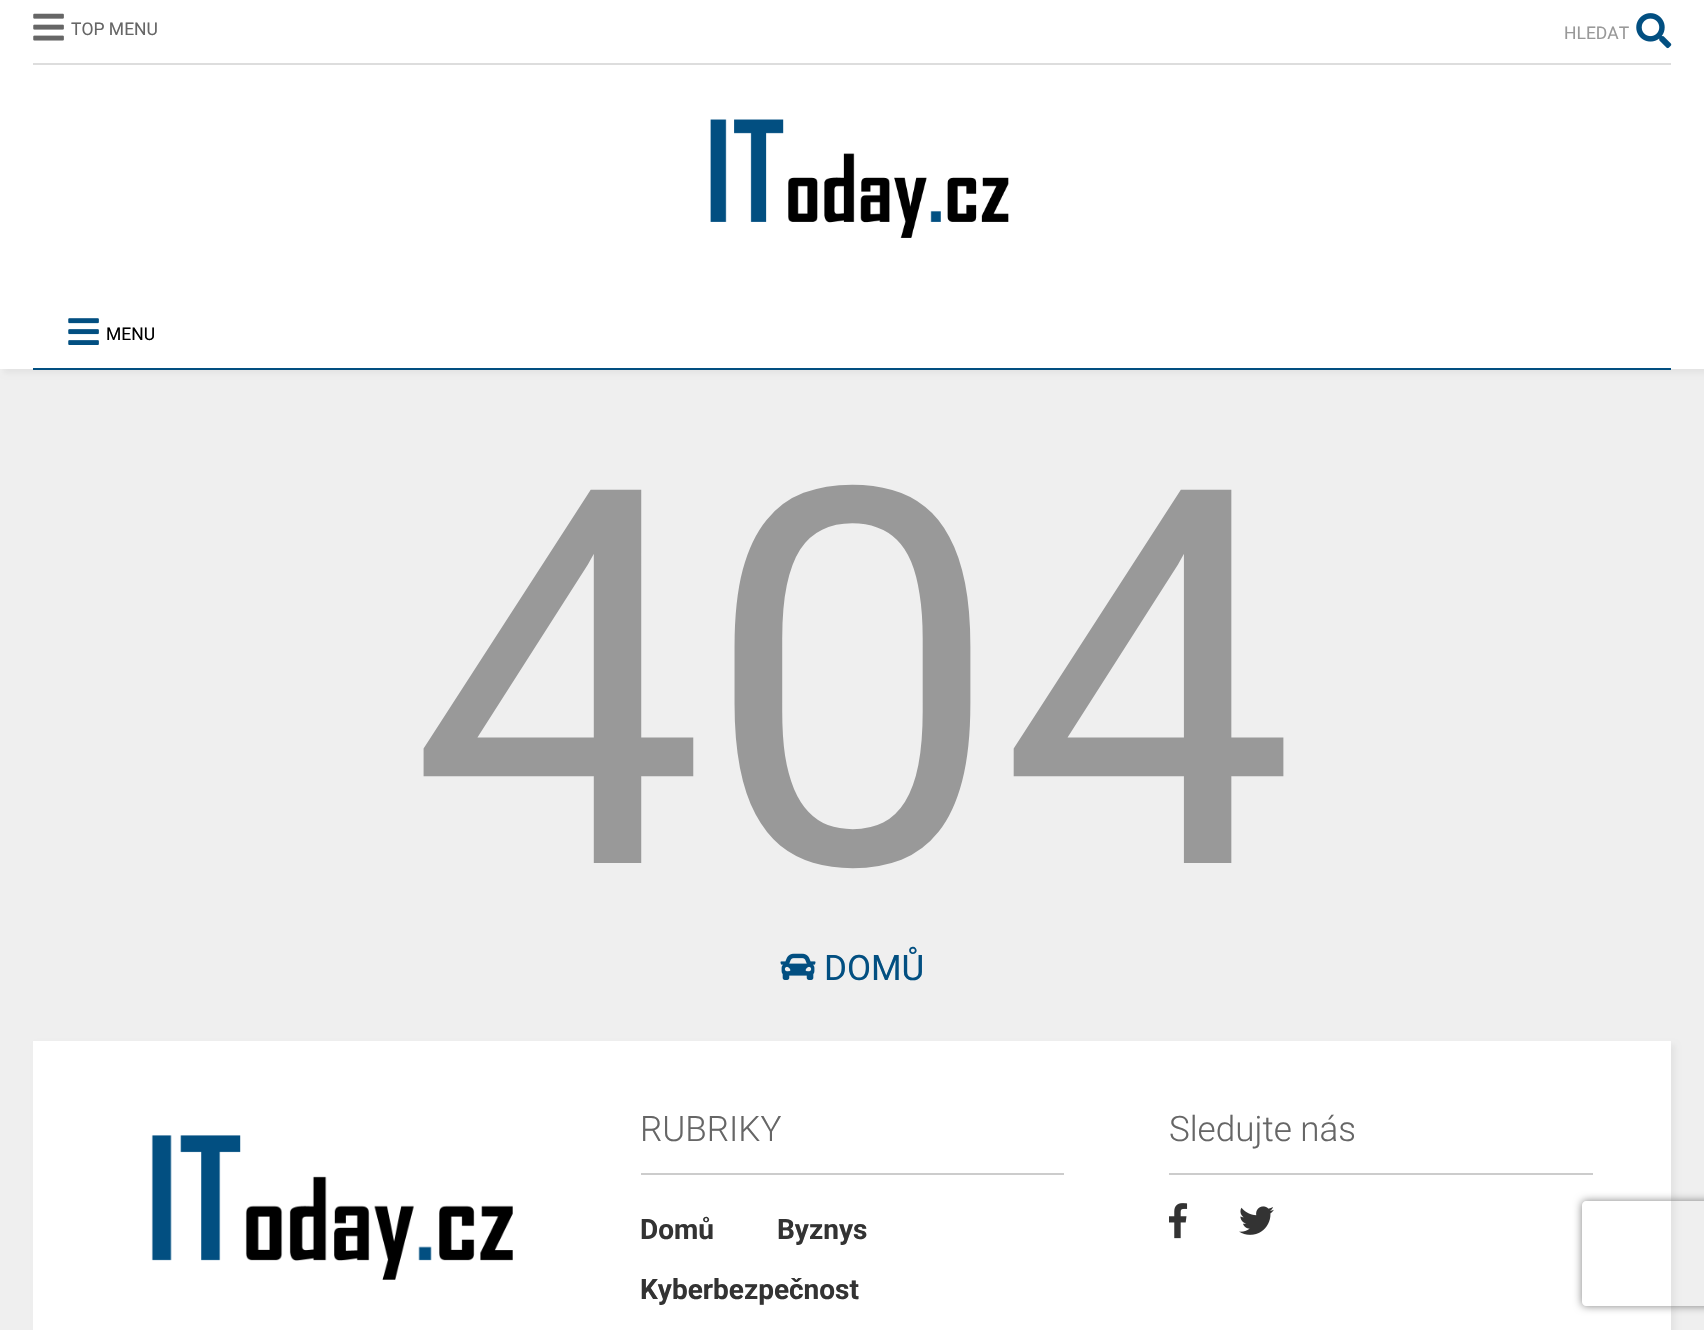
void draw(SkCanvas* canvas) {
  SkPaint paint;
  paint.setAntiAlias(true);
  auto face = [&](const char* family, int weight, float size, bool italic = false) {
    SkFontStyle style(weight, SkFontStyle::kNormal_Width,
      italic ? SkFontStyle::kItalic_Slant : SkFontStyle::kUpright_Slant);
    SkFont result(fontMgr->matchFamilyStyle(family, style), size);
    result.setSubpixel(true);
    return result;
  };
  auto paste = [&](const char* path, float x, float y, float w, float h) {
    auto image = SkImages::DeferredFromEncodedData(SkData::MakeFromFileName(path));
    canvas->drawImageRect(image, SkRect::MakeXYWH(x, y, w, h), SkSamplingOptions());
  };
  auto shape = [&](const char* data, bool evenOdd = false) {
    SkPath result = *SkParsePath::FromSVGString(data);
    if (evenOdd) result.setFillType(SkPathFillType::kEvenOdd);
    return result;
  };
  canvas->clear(0xffefefef);
  paint.setColor(0x0d000000);
  paint.setMaskFilter(SkMaskFilter::MakeBlur(kNormal_SkBlurStyle, 2.5f));
  canvas->drawRect(SkRect::MakeXYWH(4, 4, 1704, 369), paint);
  paint.setMaskFilter(nullptr);
  paint.setColor(0xffffffff);
  canvas->drawRect(SkRect::MakeXYWH(0, 0, 1704, 369), paint);
  paint.setColor(0xffdddddd);
  canvas->drawRect(SkRect::MakeXYWH(33, 63, 1638, 2), paint);
  paste("img/1.png", 33, 13, 31, 28);
  paste("img/2.png", 1636, 13, 36, 36);
  paste("img/3.png", 710, 119, 299, 119);
  paste("img/4.png", 68, 318, 31, 27);
  paint.setColor(0xff024f81);
  canvas->drawRect(SkRect::MakeXYWH(33, 368, 1638, 2), paint);
  paste("img/5.png", 780, 953, 36, 27);
  paint.setColor(0x0d000000);
  paint.setMaskFilter(SkMaskFilter::MakeBlur(kNormal_SkBlurStyle, 2.5f));
  canvas->drawRect(SkRect::MakeXYWH(37, 1045, 1638, 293), paint);
  paint.setMaskFilter(nullptr);
  paint.setColor(0xffffffff);
  canvas->drawRect(SkRect::MakeXYWH(33, 1041, 1638, 289), paint);
  paste("img/6.png", 151, 1135, 362, 145);
  paint.setColor(0xffcccccc);
  canvas->drawRect(SkRect::MakeXYWH(641, 1173, 423, 2), paint);
  canvas->drawRect(SkRect::MakeXYWH(1169, 1173, 424, 2), paint);
  paste("img/7.png", 1169, 1203, 19, 36);
  paste("img/8.png", 1239, 1206, 35, 29);
  canvas->save();
  canvas->clipPath(shape("M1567 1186H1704V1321H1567ZM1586 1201H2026C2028 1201 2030 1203 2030 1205V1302C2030 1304 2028 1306 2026 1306H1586C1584 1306 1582 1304 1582 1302V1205C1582 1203 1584 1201 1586 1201Z", true), true);
  paint.setColor(0xff808080);
  paint.setMaskFilter(SkMaskFilter::MakeBlur(kNormal_SkBlurStyle, 4.5f));
  canvas->drawRoundRect(SkRect::MakeXYWH(1582, 1201, 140, 105), 4, 4, paint);
  paint.setMaskFilter(nullptr);
  canvas->restore();
  auto f0 = face("Roboto", 400, 17.5f);
  paint.setColor(0xff666666);
  canvas->drawString("TOP MENU", 71, 35, f0, paint);
  paint.setColor(0xff999999);
  canvas->drawString("HLEDAT", 1564, 39, f0, paint);
  paint.setColor(0xff000000);
  canvas->drawString("MENU", 106, 340, f0, paint);
  auto f1 = face("Roboto", 400, 525);
  paint.setColor(0xff999999);
  canvas->drawString("404", 410, 863, f1, paint);
  auto f2 = face("Roboto", 400, 35);
  paint.setColor(0xff024f81);
  canvas->drawString("DOMŮ", 824, 980, f2, paint);
  auto f3 = face("Roboto", 300, 35);
  paint.setColor(0xff666666);
  canvas->drawString("RUBRIKY", 640, 1141, f3, paint);
  auto f4 = face("Roboto", 700, 28);
  paint.setColor(0xff333333);
  {
    const struct { const char* s; float x, y; } items[] = {
      {"Domů", 640, 1239},
      {"Byznys", 777, 1239},
      {"Kyberbezpečnost", 640, 1299},
    };
    for (auto [s, x, y] : items) {
      canvas->drawString(s, x, y, f4, paint);
    }
  }
  paint.setColor(0xff666666);
  canvas->drawString("Sledujte nás", 1169, 1141, f3, paint);
}
